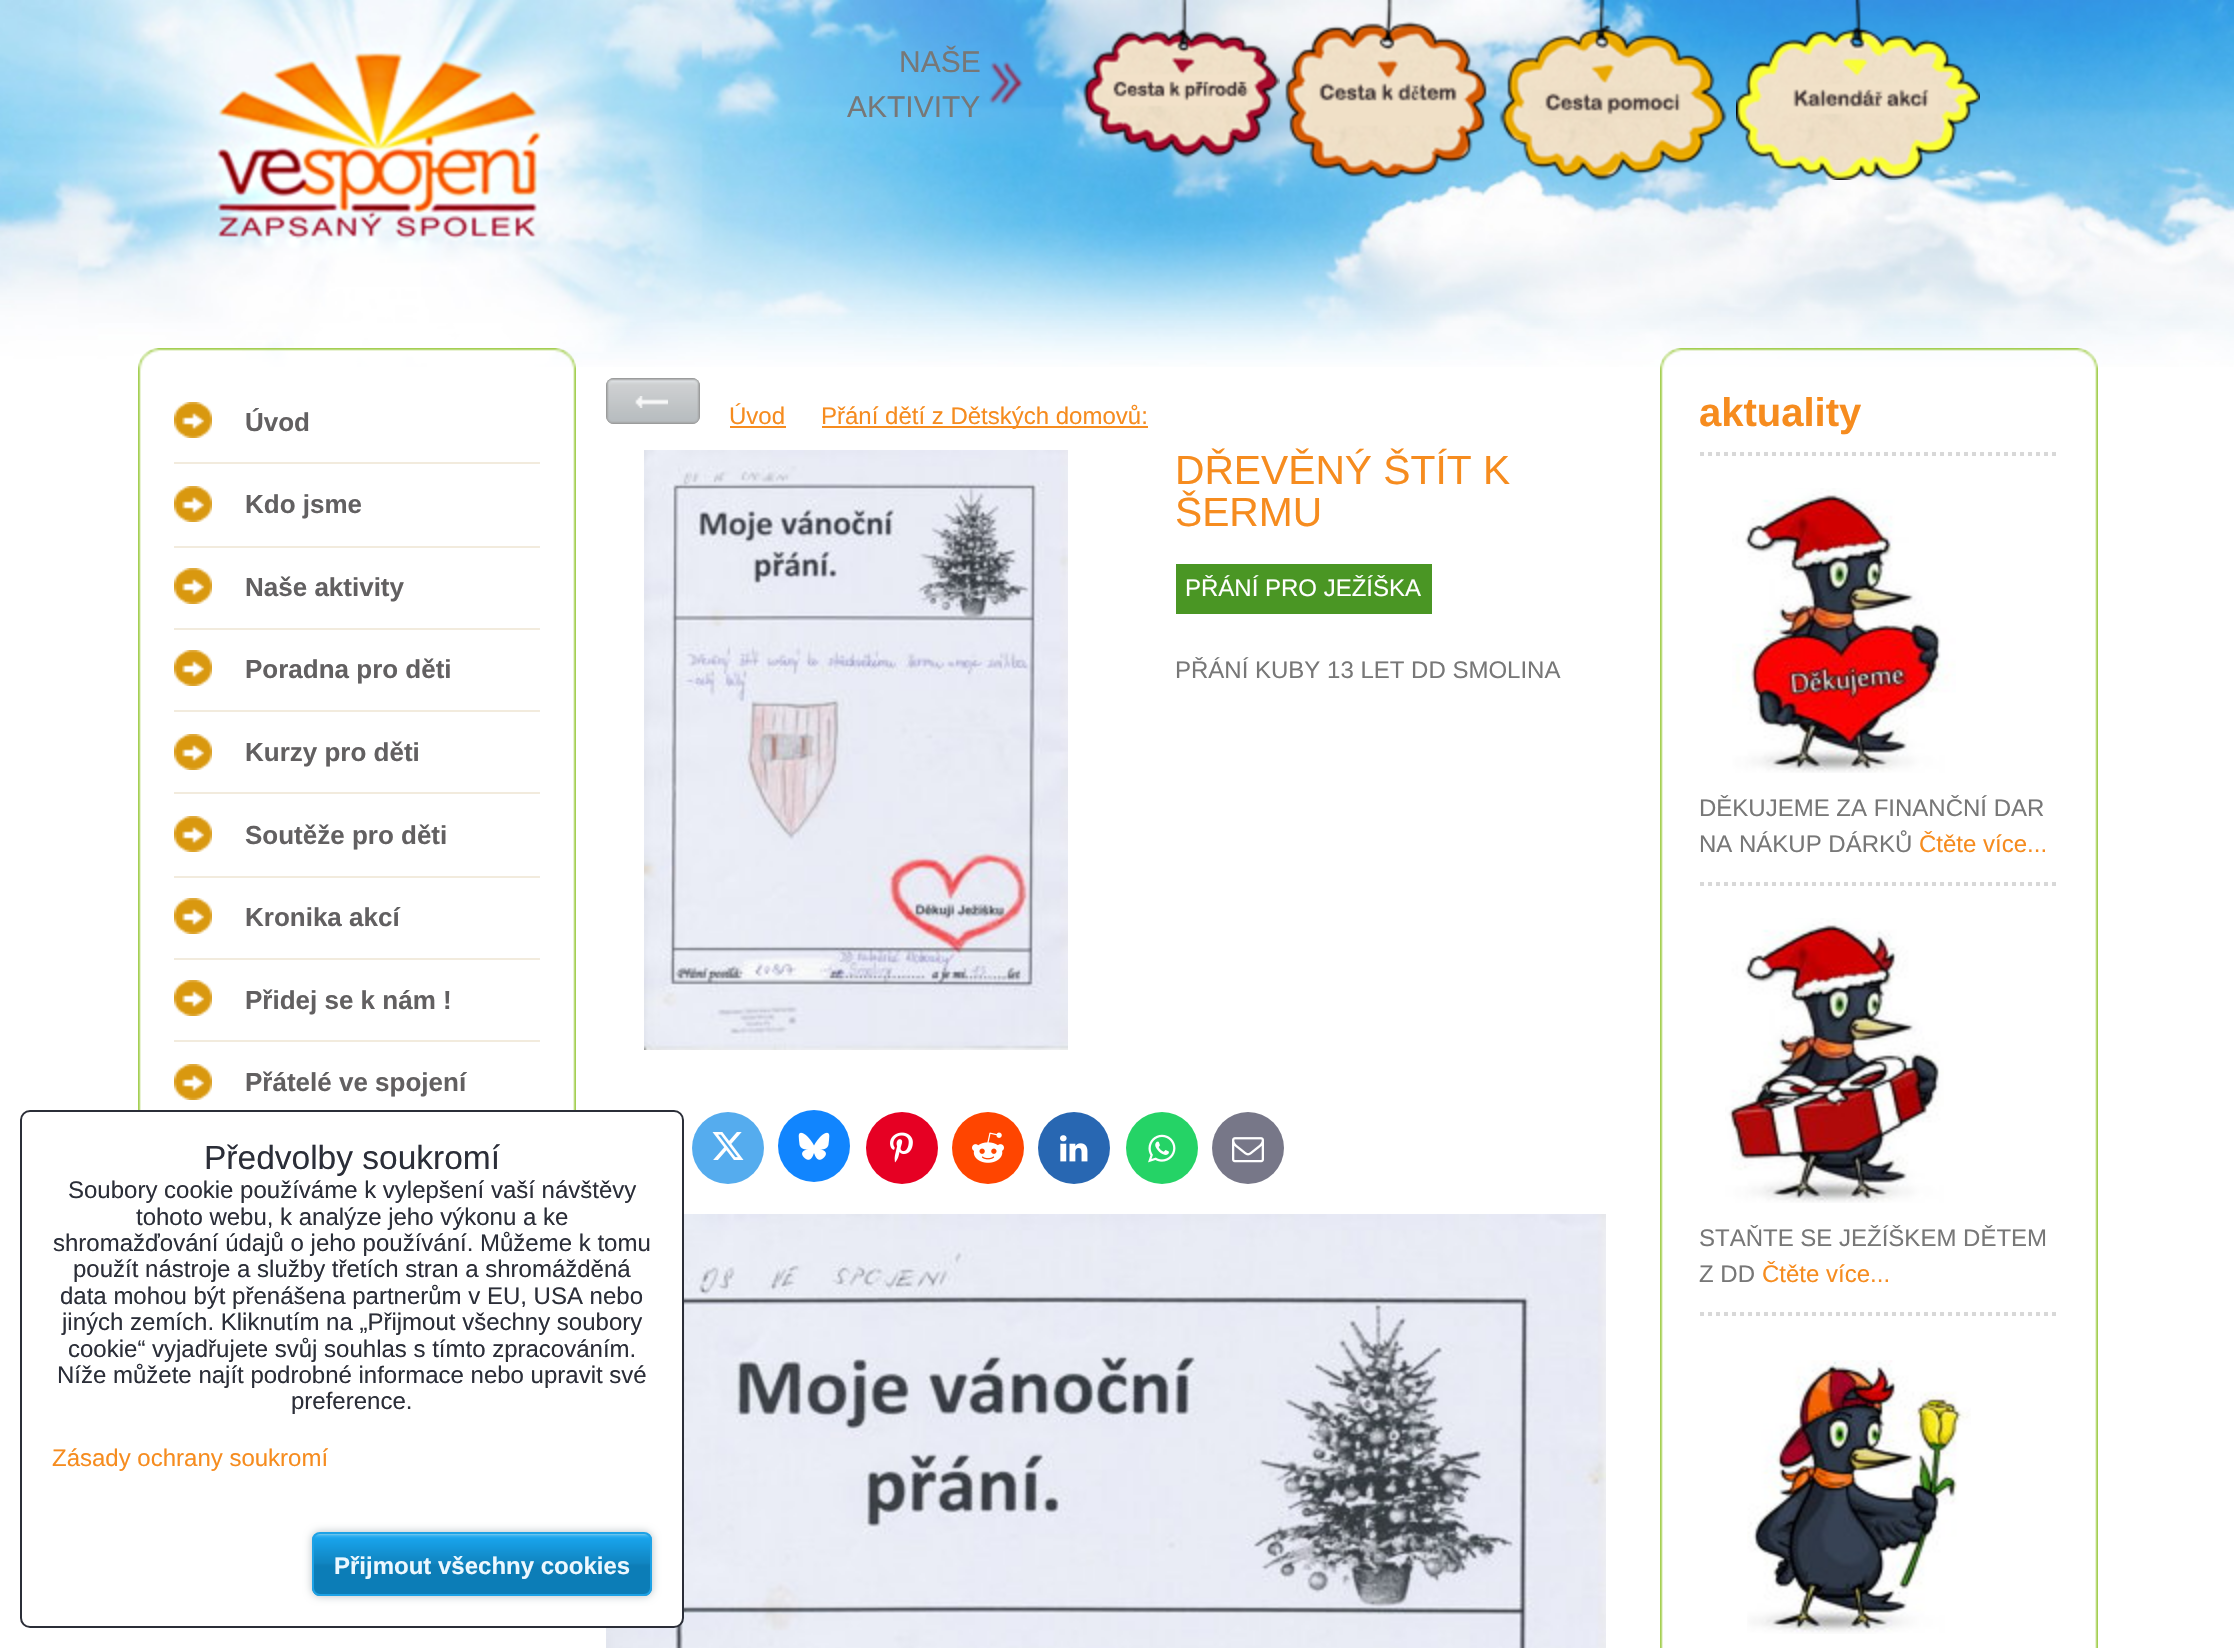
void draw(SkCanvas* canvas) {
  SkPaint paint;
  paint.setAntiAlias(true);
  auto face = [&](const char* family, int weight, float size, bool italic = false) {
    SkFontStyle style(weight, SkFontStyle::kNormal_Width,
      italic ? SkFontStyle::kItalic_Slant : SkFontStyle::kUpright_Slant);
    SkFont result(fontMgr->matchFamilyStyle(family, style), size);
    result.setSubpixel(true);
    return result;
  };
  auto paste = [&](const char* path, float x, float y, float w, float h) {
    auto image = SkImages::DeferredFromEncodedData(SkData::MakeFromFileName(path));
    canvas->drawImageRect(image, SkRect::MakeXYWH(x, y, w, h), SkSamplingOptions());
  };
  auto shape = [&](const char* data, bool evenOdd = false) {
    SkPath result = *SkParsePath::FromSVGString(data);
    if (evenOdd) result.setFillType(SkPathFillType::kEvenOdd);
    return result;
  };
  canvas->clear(0xffffffff);
  paste("img/1.png", 0, 0, 2234, 367);
  paste("img/2.png", 989, 61, 35, 44);
  paste("img/3.png", 1083, 0, 197, 159);
  paste("img/4.png", 1285, 0, 202, 179);
  paste("img/5.png", 1499, 0, 228, 181);
  paste("img/6.png", 1736, 0, 244, 180);
  paste("img/7.png", 138, 348, 438, 762);
  paste("img/8.png", 174, 402, 38, 36);
  paste("img/8.png", 174, 486, 38, 36);
  paint.setColor(0xfff2ebdd);
  canvas->drawRect(SkRect::MakeXYWH(174, 462, 366, 2), paint);
  paste("img/8.png", 174, 568, 38, 36);
  canvas->drawRect(SkRect::MakeXYWH(174, 546, 366, 2), paint);
  paste("img/8.png", 174, 650, 38, 36);
  canvas->drawRect(SkRect::MakeXYWH(174, 628, 366, 2), paint);
  paste("img/8.png", 174, 734, 38, 36);
  canvas->drawRect(SkRect::MakeXYWH(174, 710, 366, 2), paint);
  paste("img/8.png", 174, 816, 38, 36);
  canvas->drawRect(SkRect::MakeXYWH(174, 792, 366, 2), paint);
  paste("img/8.png", 174, 898, 38, 36);
  canvas->drawRect(SkRect::MakeXYWH(174, 876, 366, 2), paint);
  paste("img/8.png", 174, 980, 38, 36);
  canvas->drawRect(SkRect::MakeXYWH(174, 958, 366, 2), paint);
  paste("img/8.png", 174, 1064, 38, 36);
  canvas->drawRect(SkRect::MakeXYWH(174, 1040, 366, 2), paint);
  paint.setColor(0xff7d7d7d);
  canvas->drawRoundRect(SkRect::MakeXYWH(606, 378, 94, 46), 8, 8, paint);
  paste("img/9.png", 606, 378, 94, 46);
  paste("img/10.png", 635, 396, 33, 12);
  paint.setColor(0xfff68c1f);
  canvas->drawRect(SkRect::MakeXYWH(730, 426, 56, 2), paint);
  canvas->drawRect(SkRect::MakeXYWH(822, 426, 326, 2), paint);
  paste("img/11.png", 644, 450, 424, 600);
  paint.setColor(0xff4a9624);
  canvas->drawRect(SkRect::MakeXYWH(1176, 564, 256, 50), paint);
  paint.setColor(0xff55acee);
  canvas->drawCircle(728, 1148, 36, paint);
  paste("img/12.png", 712, 1132, 32, 28);
  paint.setColor(0xff1185fe);
  canvas->drawCircle(814, 1146, 36, paint);
  paste("img/13.png", 798, 1132, 32, 28);
  paint.setColor(0xffe60023);
  canvas->drawCircle(902, 1148, 36, paint);
  paste("img/14.png", 890, 1132, 23, 31);
  paint.setColor(0xffff4500);
  canvas->drawCircle(988, 1148, 36, paint);
  paste("img/15.png", 972, 1132, 32, 31);
  paint.setColor(0xff2867b2);
  canvas->drawCircle(1074, 1148, 36, paint);
  paste("img/16.png", 1060, 1135, 28, 27);
  paint.setColor(0xff25d366);
  canvas->drawCircle(1162, 1148, 36, paint);
  paste("img/17.png", 1148, 1134, 28, 29);
  paint.setColor(0xff777788);
  canvas->drawCircle(1248, 1148, 36, paint);
  paste("img/18.png", 1232, 1137, 32, 26);
  paste("img/19.png", 606, 1214, 1000, 434);
  paste("img/20.png", 1660, 348, 438, 1300);
  paint.setStroke(true);
  paint.setStrokeWidth(4);
  paint.setColor(0xffd8d8d8);
  paint.setPathEffect(SkDashPathEffect::Make({{4, 4}}, 0));
  canvas->drawPath(shape("M1700 454H2058"), paint);
  paint.setPathEffect(nullptr);
  paste("img/21.png", 1732, 488, 224, 285);
  paint.setPathEffect(SkDashPathEffect::Make({{4, 4}}, 0));
  canvas->drawPath(shape("M1700 884H2058"), paint);
  paint.setPathEffect(nullptr);
  paste("img/22.png", 1725, 918, 219, 285);
  paint.setPathEffect(SkDashPathEffect::Make({{4, 4}}, 0));
  canvas->drawPath(shape("M1700 1314H2058"), paint);
  paint.setPathEffect(nullptr);
  paste("img/23.png", 1747, 1360, 224, 274);
  paint.setStroke(false);
  paint.setColor(0xffffffff);
  canvas->drawRoundRect(SkRect::MakeXYWH(21, 1111, 662, 516), 9, 9, paint);
  paint.setStroke(true);
  paint.setStrokeWidth(2);
  paint.setColor(0xff2b2e38);
  canvas->drawRoundRect(SkRect::MakeXYWH(21, 1111, 662, 516), 9, 9, paint);
  paint.setStroke(false);
  paint.setColor(0xffb6bfc3);
  paint.setMaskFilter(SkMaskFilter::MakeBlur(kNormal_SkBlurStyle, 4));
  canvas->drawRoundRect(SkRect::MakeXYWH(312, 1532, 340, 64), 8, 8, paint);
  paint.setMaskFilter(nullptr);
  paste("img/24.png", 312, 1533, 340, 63);
  paint.setStroke(true);
  paint.setColor(0xff1da2e6);
  canvas->drawRoundRect(SkRect::MakeXYWH(313, 1533, 338, 62), 7, 7, paint);
  auto f0 = face("Liberation Sans", 400, 30);
  paint.setStroke(false);
  paint.setColor(0xff777777);
  canvas->drawString("NAŠE", 899, 72, f0, paint);
  canvas->drawString("AKTIVITY", 847, 117, f0, paint);
  auto f1 = face("Liberation Sans", 700, 26);
  paint.setColor(0xff626061);
  {
    const struct { const char* s; float x, y; } items[] = {
      {"Úvod", 245, 431},
      {"Kdo jsme", 245, 513},
      {"Naše aktivity", 245, 596},
      {"Poradna pro děti", 245, 678},
      {"Kurzy pro děti", 245, 761},
      {"Soutěže pro děti", 245, 844},
      {"Kronika akcí", 245, 926},
      {"Přidej se k nám !", 245, 1009},
      {"Přátelé ve spojení", 245, 1091},
    };
    for (auto [s, x, y] : items) {
      canvas->drawString(s, x, y, f1, paint);
    }
  }
  auto f2 = face("Liberation Sans", 400, 24);
  paint.setColor(0xfff68c1f);
  canvas->drawString("Úvod", 729, 424, f2, paint);
  canvas->drawString("Přání dětí z Dětských domovů:", 821, 424, f2, paint);
  auto f3 = face("Liberation Sans", 400, 40.75f);
  canvas->drawString("DŘEVĚNÝ ŠTÍT K", 1175, 484, f3, paint);
  canvas->drawString("ŠERMU", 1175, 526, f3, paint);
  paint.setColor(0xffffffff);
  canvas->drawString("PŘÁNÍ PRO JEŽÍŠKA", 1185, 596, f2, paint);
  paint.setColor(0xff777777);
  canvas->drawString("PŘÁNÍ KUBY 13 LET DD SMOLINA", 1175, 678, f2, paint);
  auto f4 = face("Liberation Sans", 700, 40);
  paint.setColor(0xfff68c1f);
  canvas->drawString("aktuality", 1699, 426, f4, paint);
  paint.setColor(0xff777777);
  canvas->drawString("DĚKUJEME ZA FINANČNÍ DAR", 1699, 816, f2, paint);
  canvas->drawString("NA NÁKUP DÁRKŮ", 1699, 852, f2, paint);
  paint.setColor(0xfff68c1f);
  canvas->drawString("Čtěte více...", 1919, 852, f2, paint);
  paint.setColor(0xff777777);
  canvas->drawString("STAŇTE SE JEŽÍŠKEM DĚTEM", 1699, 1246, f2, paint);
  canvas->drawString("Z DD", 1699, 1282, f2, paint);
  paint.setColor(0xfff68c1f);
  canvas->drawString("Čtěte více...", 1762, 1282, f2, paint);
  auto f5 = face("Liberation Sans", 400, 33.5f);
  paint.setColor(0xff2b2e38);
  canvas->drawString("Předvolby soukromí", 204, 1169, f5, paint);
  {
    const struct { const char* s; float x, y; } items[] = {
      {"Soubory cookie používáme k vylepšení vaší návštěvy", 68, 1198},
      {"tohoto webu, k analýze jeho výkonu a ke", 136, 1225},
      {"shromažďování údajů o jeho používání. Můžeme k tomu", 53, 1251},
      {"použít nástroje a služby třetích stran a shromážděná", 73, 1277},
      {"data mohou být přenášena partnerům v EU, USA nebo", 60, 1304},
      {"jiných zemích. Kliknutím na „Přijmout všechny soubory", 62, 1330},
      {"cookie“ vyjadřujete svůj souhlas s tímto zpracováním.", 68, 1357},
      {"Níže můžete najít podrobné informace nebo upravit své", 57, 1383},
      {"preference.", 291, 1409},
    };
    for (auto [s, x, y] : items) {
      canvas->drawString(s, x, y, f2, paint);
    }
  }
  paint.setColor(0xfff68c1f);
  canvas->drawString("Zásady ochrany soukromí", 52, 1466, f2, paint);
  auto f6 = face("Liberation Sans", 700, 24);
  paint.setColor(0xffecf8ff);
  canvas->drawString("Přijmout všechny cookies", 334, 1574, f6, paint);
}
